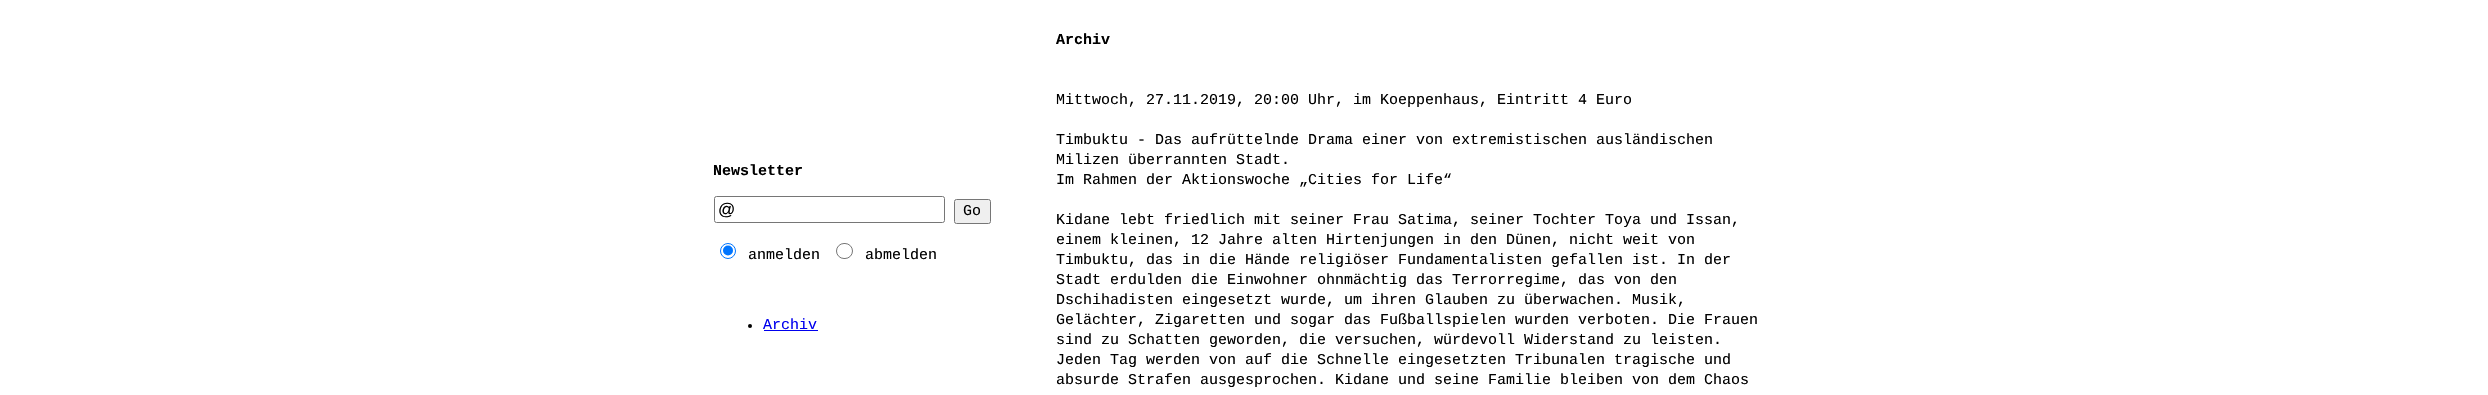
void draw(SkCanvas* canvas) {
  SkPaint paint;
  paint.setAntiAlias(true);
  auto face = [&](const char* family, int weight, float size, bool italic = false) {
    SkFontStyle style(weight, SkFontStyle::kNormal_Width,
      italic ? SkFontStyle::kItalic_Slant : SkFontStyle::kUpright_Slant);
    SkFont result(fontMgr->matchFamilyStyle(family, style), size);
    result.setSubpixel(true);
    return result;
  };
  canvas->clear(0xffffffff);
  paint.setStroke(true);
  paint.setStrokeWidth(1);
  paint.setColor(0xff767676);
  canvas->drawRoundRect(SkRect::MakeXYWH(714.5f, 196.5f, 230, 26), 2, 2, paint);
  paint.setStroke(false);
  paint.setColor(0xffefefef);
  canvas->drawRoundRect(SkRect::MakeXYWH(954.5f, 199.5f, 36, 24), 2, 2, paint);
  paint.setStroke(true);
  paint.setColor(0xff767676);
  canvas->drawRoundRect(SkRect::MakeXYWH(954.5f, 199.5f, 36, 24), 2, 2, paint);
  paint.setColor(0xff0075ff);
  canvas->drawCircle(728, 251, 7.5f, paint);
  paint.setStroke(false);
  canvas->drawCircle(728, 250.5f, 5, paint);
  paint.setStroke(true);
  paint.setColor(0xff767676);
  canvas->drawRoundRect(SkRect::MakeXYWH(836.5f, 243.5f, 16, 15), 7.5f, 7.5f, paint);
  paint.setStroke(false);
  paint.setColor(0xff000000);
  canvas->drawCircle(750, 326, 2, paint);
  paint.setColor(0xff0000ee);
  canvas->drawRect(SkRect::MakeXYWH(764, 330, 54, 1), paint);
  auto f0 = face("Liberation Mono", 700, 15);
  paint.setColor(0xff000000);
  canvas->drawString("Newsletter", 713, 175, f0, paint);
  auto f1 = face("Liberation Sans", 400, 17);
  canvas->drawString("@", 718, 215, f1, paint);
  auto f2 = face("Liberation Mono", 400, 15);
  {
    const struct { const char* s; float x, y; } items[] = {
      {"Go", 963, 215},
      {"anmelden", 748, 259},
      {"abmelden", 865, 259},
    };
    for (auto [s, x, y] : items) {
      canvas->drawString(s, x, y, f2, paint);
    }
  }
  paint.setColor(0xff0000ee);
  canvas->drawString("Archiv", 763, 329, f2, paint);
  paint.setColor(0xff000000);
  canvas->drawString("Archiv", 1056, 44, f0, paint);
  {
    const struct { const char* s; float x, y; } items[] = {
      {"Mittwoch, 27.11.2019, 20:00 Uhr, im Koeppenhaus, Eintritt 4 Euro", 1056, 104},
      {"Timbuktu - Das aufrüttelnde Drama einer von extremistischen ausländischen", 1056, 144},
      {"Milizen überrannten Stadt.", 1056, 164},
      {"Im Rahmen der Aktionswoche „Cities for Life“", 1056, 184},
      {"Kidane lebt friedlich mit seiner Frau Satima, seiner Tochter Toya und Issan,", 1056, 224},
      {"einem kleinen, 12 Jahre alten Hirtenjungen in den Dünen, nicht weit von", 1056, 244},
      {"Timbuktu, das in die Hände religiöser Fundamentalisten gefallen ist. In der", 1056, 264},
      {"Stadt erdulden die Einwohner ohnmächtig das Terrorregime, das von den", 1056, 284},
      {"Dschihadisten eingesetzt wurde, um ihren Glauben zu überwachen. Musik,", 1056, 304},
      {"Gelächter, Zigaretten und sogar das Fußballspielen wurden verboten. Die Frauen", 1056, 324},
      {"sind zu Schatten geworden, die versuchen, würdevoll Widerstand zu leisten.", 1056, 344},
      {"Jeden Tag werden von auf die Schnelle eingesetzten Tribunalen tragische und", 1056, 364},
      {"absurde Strafen ausgesprochen. Kidane und seine Familie bleiben von dem Chaos", 1056, 384},
    };
    for (auto [s, x, y] : items) {
      canvas->drawString(s, x, y, f2, paint);
    }
  }
}
